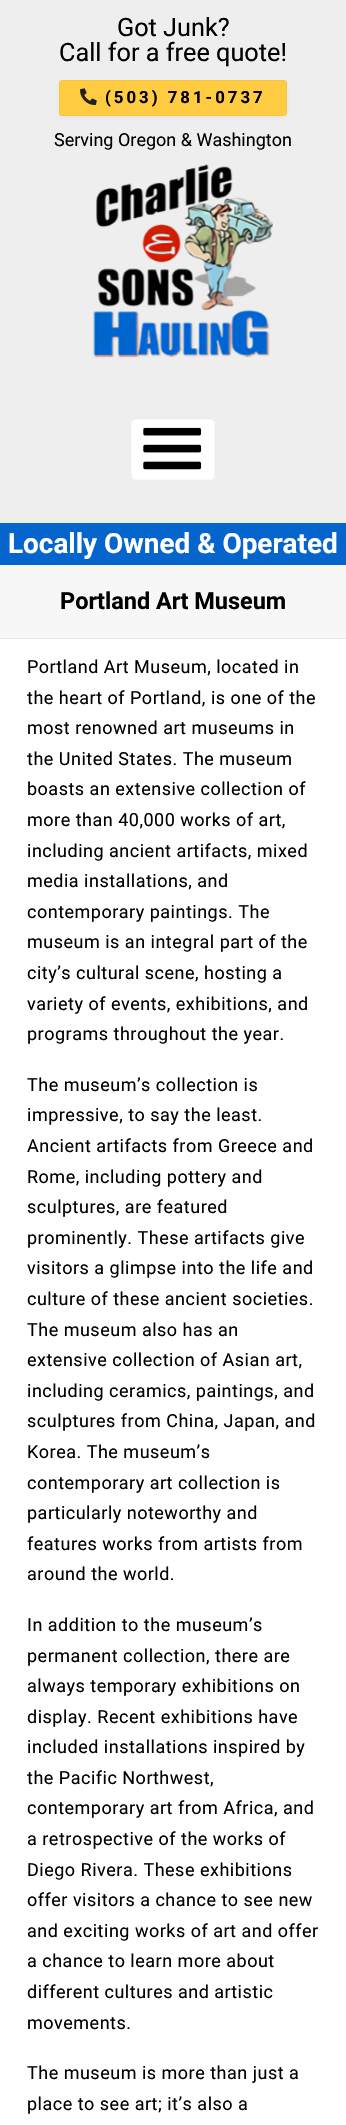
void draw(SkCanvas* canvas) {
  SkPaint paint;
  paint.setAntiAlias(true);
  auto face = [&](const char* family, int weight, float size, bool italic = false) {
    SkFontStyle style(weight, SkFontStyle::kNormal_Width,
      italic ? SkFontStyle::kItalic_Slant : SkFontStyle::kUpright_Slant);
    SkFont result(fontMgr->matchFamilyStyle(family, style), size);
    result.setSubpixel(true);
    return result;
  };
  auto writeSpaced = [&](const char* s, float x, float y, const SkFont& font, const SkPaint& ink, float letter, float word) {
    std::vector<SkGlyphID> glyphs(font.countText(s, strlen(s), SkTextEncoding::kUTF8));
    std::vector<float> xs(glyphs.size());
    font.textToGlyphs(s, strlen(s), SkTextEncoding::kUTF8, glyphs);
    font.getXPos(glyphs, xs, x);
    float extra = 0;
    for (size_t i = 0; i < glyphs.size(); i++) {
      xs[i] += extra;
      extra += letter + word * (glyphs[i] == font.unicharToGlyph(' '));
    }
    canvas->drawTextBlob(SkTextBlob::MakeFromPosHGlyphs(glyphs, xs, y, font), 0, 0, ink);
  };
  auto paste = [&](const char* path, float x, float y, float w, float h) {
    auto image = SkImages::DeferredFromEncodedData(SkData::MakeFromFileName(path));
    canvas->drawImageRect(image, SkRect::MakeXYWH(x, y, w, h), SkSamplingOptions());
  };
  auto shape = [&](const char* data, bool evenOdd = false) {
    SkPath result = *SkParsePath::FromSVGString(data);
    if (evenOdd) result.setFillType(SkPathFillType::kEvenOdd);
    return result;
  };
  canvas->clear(0xffffffff);
  paint.setColor(0xffeeeeee);
  canvas->drawRect(SkRect::MakeXYWH(0, 0, 346, 523), paint);
  paint.setColor(0x80d5d9d9);
  paint.setMaskFilter(SkMaskFilter::MakeBlur(kNormal_SkBlurStyle, 2.5f));
  canvas->drawRoundRect(SkRect::MakeXYWH(59, 82, 228, 36), 4, 4, paint);
  paint.setMaskFilter(nullptr);
  paint.setColor(0xffffcb40);
  canvas->drawRoundRect(SkRect::MakeXYWH(59, 80, 228, 36), 4, 4, paint);
  paint.setStroke(true);
  paint.setStrokeWidth(1);
  paint.setColor(0x08000000);
  canvas->drawRect(SkRect::MakeXYWH(59.5f, 80.5f, 227, 35), paint);
  paste("img/1.png", 80, 88, 17, 18);
  paste("img/2.png", 92, 164, 181, 194);
  paint.setStroke(false);
  paint.setColor(0xffffffff);
  canvas->drawPath(shape("M137 419H209C213 419 215 421 215 423V475C215 478 213 480 209 480H137C133 480 131 478 131 475V423C131 421 133 419 137 419Z"), paint);
  paint.setStroke(true);
  paint.setColor(0x08000000);
  canvas->drawPath(shape("M136.5 419H209.5C212 419 214.5 421 214.5 423V475.5C214.5 477.5 212 479.5 209.5 479.5H136.5C134 479.5 131.5 477.5 131.5 475.5V423C131.5 421 134 419 136.5 419Z"), paint);
  paste("img/3.png", 143, 427, 59, 43);
  paint.setStroke(false);
  {
    const struct { float x, y, w, h; SkColor color; } items[] = {
      {0, 523, 346, 42, 0xff0665cc},
      {0, 565, 346, 73, 0xfff7f7f7},
      {0, 638, 346, 1, 0xffeaeaea},
    };
    for (auto [x, y, w, h, color] : items) {
      paint.setColor(color);
      canvas->drawRect(SkRect::MakeXYWH(x, y, w, h), paint);
    }
  }
  auto f0 = face("Roboto", 400, 25.25f);
  paint.setColor(0xff000000);
  canvas->drawString("Got Junk?", 117, 36, f0, paint);
  canvas->drawString("Call for a free quote!", 59, 61, f0, paint);
  auto f1 = face("Roboto", 700, 16.75f);
  writeSpaced("(503) 781-0737", 105, 103, f1, paint, 3, 0);
  auto f2 = face("Roboto", 400, 18);
  canvas->drawString("Serving Oregon & Washington", 54, 146, f2, paint);
  auto f3 = face("Roboto", 700, 27.9f);
  paint.setColor(0xffffffff);
  canvas->drawString("Locally Owned & Operated", 8, 553, f3, paint);
  auto f4 = face("Roboto", 700, 23.5f);
  paint.setColor(0xff000000);
  canvas->drawString("Portland Art Museum", 60, 609, f4, paint);
  {
    const struct { const char* s; float x, y; } items[] = {
      {"Portland Art Museum, located in", 27, 673},
      {"the heart of Portland, is one of the", 27, 704},
      {"most renowned art museums in", 27, 734},
      {"the United States. The museum", 27, 765},
      {"boasts an extensive collection of", 27, 795},
      {"more than 40,000 works of art,", 27, 826},
      {"including ancient artifacts, mixed", 27, 857},
      {"media installations, and", 27, 887},
      {"contemporary paintings. The", 27, 918},
      {"museum is an integral part of the", 27, 948},
      {"city’s cultural scene, hosting a", 27, 979},
      {"variety of events, exhibitions, and", 27, 1010},
      {"programs throughout the year.", 27, 1040},
      {"The museum’s collection is", 27, 1091},
      {"impressive, to say the least.", 27, 1121},
      {"Ancient artifacts from Greece and", 27, 1152},
      {"Rome, including pottery and", 27, 1183},
      {"sculptures, are featured", 27, 1213},
      {"prominently. These artifacts give", 27, 1244},
      {"visitors a glimpse into the life and", 27, 1274},
      {"culture of these ancient societies.", 27, 1305},
      {"The museum also has an", 27, 1336},
      {"extensive collection of Asian art,", 27, 1366},
      {"including ceramics, paintings, and", 27, 1397},
      {"sculptures from China, Japan, and", 27, 1427},
      {"Korea. The museum’s", 27, 1458},
      {"contemporary art collection is", 27, 1489},
      {"particularly noteworthy and", 27, 1519},
      {"features works from artists from", 27, 1550},
      {"around the world.", 27, 1580},
      {"In addition to the museum’s", 27, 1631},
      {"permanent collection, there are", 27, 1662},
      {"always temporary exhibitions on", 27, 1692},
      {"display. Recent exhibitions have", 27, 1723},
      {"included installations inspired by", 27, 1753},
      {"the Pacific Northwest,", 27, 1784},
      {"contemporary art from Africa, and", 27, 1814},
      {"a retrospective of the works of", 27, 1845},
      {"Diego Rivera. These exhibitions", 27, 1876},
      {"offer visitors a chance to see new", 27, 1906},
      {"and exciting works of art and offer", 27, 1937},
      {"a chance to learn more about", 27, 1967},
      {"different cultures and artistic", 27, 1998},
      {"movements.", 27, 2029},
      {"The museum is more than just a", 27, 2079},
      {"place to see art; it’s also a", 27, 2110},
    };
    for (auto [s, x, y] : items) {
      writeSpaced(s, x, y, f2, paint, 0.5f, 0);
    }
  }
}
